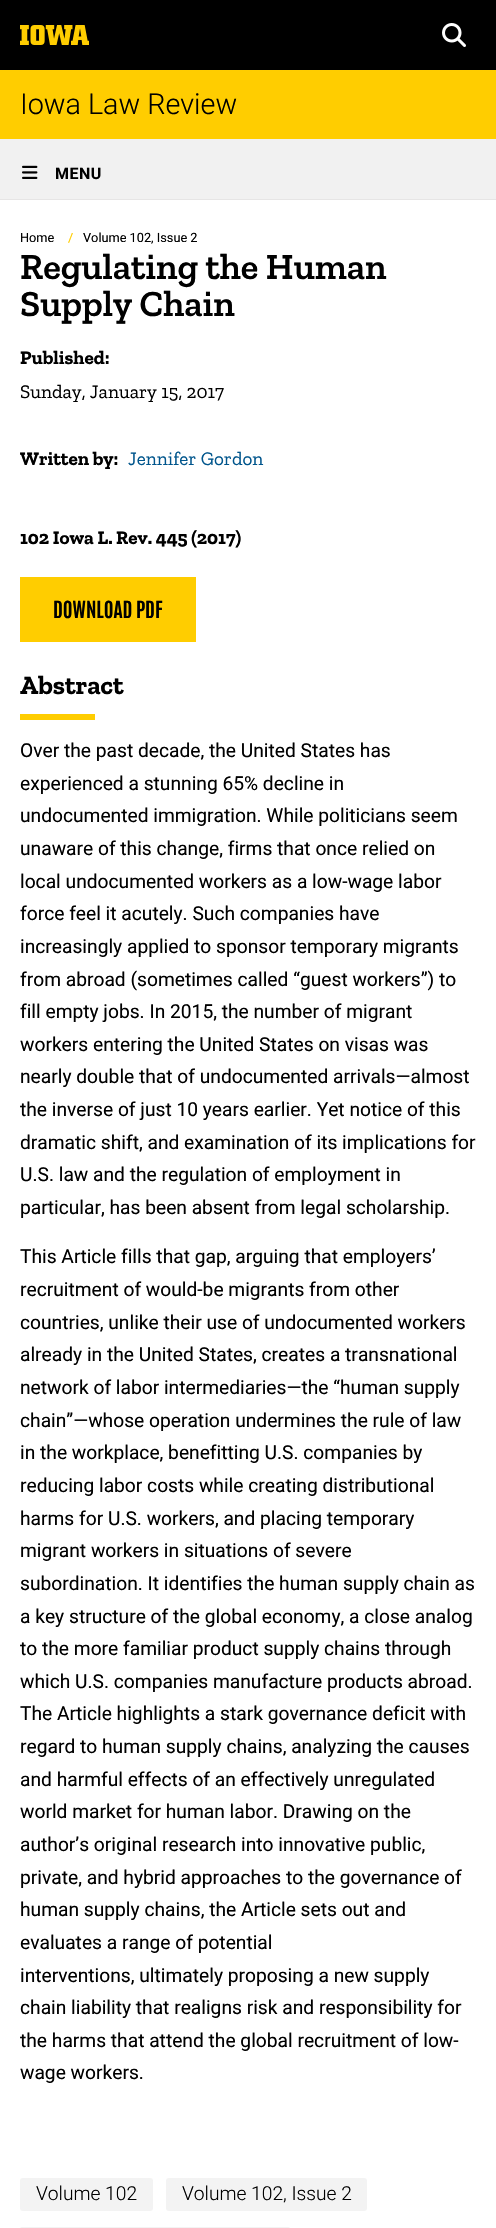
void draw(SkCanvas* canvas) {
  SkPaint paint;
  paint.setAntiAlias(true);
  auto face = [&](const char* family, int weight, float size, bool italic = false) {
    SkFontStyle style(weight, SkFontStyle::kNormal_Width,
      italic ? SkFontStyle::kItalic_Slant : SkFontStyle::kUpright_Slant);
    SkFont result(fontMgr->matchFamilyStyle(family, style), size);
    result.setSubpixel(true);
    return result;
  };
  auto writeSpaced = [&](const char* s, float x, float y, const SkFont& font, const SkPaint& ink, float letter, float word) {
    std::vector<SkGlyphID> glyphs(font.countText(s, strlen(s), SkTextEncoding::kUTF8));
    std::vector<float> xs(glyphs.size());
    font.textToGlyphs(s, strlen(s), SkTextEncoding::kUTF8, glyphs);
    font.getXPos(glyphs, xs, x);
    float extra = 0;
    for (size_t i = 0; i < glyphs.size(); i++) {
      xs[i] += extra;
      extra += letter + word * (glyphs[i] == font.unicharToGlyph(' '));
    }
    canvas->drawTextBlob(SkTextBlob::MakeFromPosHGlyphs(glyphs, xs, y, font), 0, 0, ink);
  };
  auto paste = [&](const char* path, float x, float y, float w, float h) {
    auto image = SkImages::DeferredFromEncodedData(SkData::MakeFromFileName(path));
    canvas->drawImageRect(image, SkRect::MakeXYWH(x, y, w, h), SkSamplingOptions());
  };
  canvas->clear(0xffffffff);
  paint.setColor(0xff000000);
  canvas->drawRect(SkRect::MakeXYWH(0, 0, 496, 70), paint);
  paste("img/1.png", 20, 25, 69, 20);
  paste("img/2.png", 442, 23, 24, 24);
  {
    const struct { float x, y, w, h; SkColor color; } items[] = {
      {0, 70, 496, 69, 0xffffcd00},
      {0, 199, 496, 1, 0xffe6e5e5},
      {0, 139, 496, 60, 0xfff1f1f1},
    };
    for (auto [x, y, w, h, color] : items) {
      paint.setColor(color);
      canvas->drawRect(SkRect::MakeXYWH(x, y, w, h), paint);
    }
  }
  paste("img/3.png", 22, 165, 16, 14);
  paint.setColor(0xffffcd00);
  canvas->drawRect(SkRect::MakeXYWH(20, 577, 176, 65), paint);
  canvas->drawRect(SkRect::MakeXYWH(20, 714, 75, 6), paint);
  paint.setColor(0xfff3f3f3);
  canvas->drawRoundRect(SkRect::MakeXYWH(20, 2178, 133, 33), 3, 3, paint);
  canvas->drawRoundRect(SkRect::MakeXYWH(166, 2178, 201, 33), 3, 3, paint);
  canvas->drawRoundRect(SkRect::MakeXYWH(20, 2227, 270, 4), 3, 3, paint);
  auto f0 = face("Roboto", 300, 28.75f);
  paint.setColor(0xff000000);
  canvas->drawString("Iowa Law Review", 20, 114, f0, paint);
  auto f1 = face("Roboto", 700, 16);
  writeSpaced("MENU", 55, 179, f1, paint, 0.5f, 0);
  auto f2 = face("Roboto", 400, 12.75f);
  canvas->drawString("Home", 20, 242, f2, paint);
  paint.setColor(0xffffcd00);
  canvas->drawString("/", 68, 242, f2, paint);
  paint.setColor(0xff000000);
  canvas->drawString("Volume 102, Issue 2", 83, 242, f2, paint);
  auto f3 = face("Zilla Slab", 600, 36.75f);
  canvas->drawString("Regulating the Human", 20, 279, f3, paint);
  canvas->drawString("Supply Chain", 20, 316, f3, paint);
  auto f4 = face("Zilla Slab", 700, 19.2f);
  canvas->drawString("Published:", 20, 364, f4, paint);
  auto f5 = face("Zilla Slab", 400, 19.2f);
  canvas->drawString("Sunday, January 15, 2017", 20, 398, f5, paint);
  canvas->drawString("Written by:", 20, 465, f4, paint);
  paint.setColor(0xff00558c);
  canvas->drawString("Jennifer Gordon", 128, 465, f5, paint);
  paint.setColor(0xff000000);
  canvas->drawString("102 Iowa L. Rev. 445 (2017)", 20, 544, f4, paint);
  auto f6 = face("Antonio", 700, 20);
  canvas->drawString("DOWNLOAD PDF", 53, 618, f6, paint);
  auto f7 = face("Zilla Slab", 700, 26.5f);
  canvas->drawString("Abstract", 20, 694, f7, paint);
  auto f8 = face("Roboto", 400, 19.2f);
  {
    const struct { const char* s; float x, y; } items[] = {
      {"Over the past decade, the United States has", 20, 757},
      {"experienced a stunning 65% decline in", 20, 790},
      {"undocumented immigration. While politicians seem", 20, 822},
      {"unaware of this change, firms that once relied on", 20, 855},
      {"local undocumented workers as a low-wage labor", 20, 888},
      {"force feel it acutely. Such companies have", 20, 920},
      {"increasingly applied to sponsor temporary migrants", 20, 953},
      {"from abroad (sometimes called “guest workers”) to", 20, 986},
      {"fill empty jobs. In 2015, the number of migrant", 20, 1018},
      {"workers entering the United States on visas was", 20, 1051},
      {"nearly double that of undocumented arrivals—almost", 20, 1083},
      {"the inverse of just 10 years earlier. Yet notice of this", 20, 1116},
      {"dramatic shift, and examination of its implications for", 20, 1149},
      {"U.S. law and the regulation of employment in", 20, 1181},
      {"particular, has been absent from legal scholarship.", 20, 1214},
      {"This Article fills that gap, arguing that employers’", 20, 1263},
      {"recruitment of would-be migrants from other", 20, 1296},
      {"countries, unlike their use of undocumented workers", 20, 1329},
      {"already in the United States, creates a transnational", 20, 1361},
      {"network of labor intermediaries—the “human supply", 20, 1394},
      {"chain”—whose operation undermines the rule of law", 20, 1427},
      {"in the workplace, benefitting U.S. companies by", 20, 1459},
      {"reducing labor costs while creating distributional", 20, 1492},
      {"harms for U.S. workers, and placing temporary", 20, 1525},
      {"migrant workers in situations of severe", 20, 1557},
      {"subordination. It identifies the human supply chain as", 20, 1590},
      {"a key structure of the global economy, a close analog", 20, 1623},
      {"to the more familiar product supply chains through", 20, 1655},
      {"which U.S. companies manufacture products abroad.", 20, 1688},
      {"The Article highlights a stark governance deficit with", 20, 1720},
      {"regard to human supply chains, analyzing the causes", 20, 1753},
      {"and harmful effects of an effectively unregulated", 20, 1786},
      {"world market for human labor. Drawing on the", 20, 1818},
      {"author’s original research into innovative public,", 20, 1851},
      {"private, and hybrid approaches to the governance of", 20, 1884},
      {"human supply chains, the Article sets out and", 20, 1916},
      {"evaluates a range of potential", 20, 1949},
      {"interventions, ultimately proposing a new supply", 20, 1982},
      {"chain liability that realigns risk and responsibility for", 20, 2014},
      {"the harms that attend the global recruitment of low-", 20, 2047},
      {"wage workers.", 20, 2079},
    };
    for (auto [s, x, y] : items) {
      canvas->drawString(s, x, y, f8, paint);
    }
  }
  auto f9 = face("Roboto", 300, 19.2f);
  canvas->drawString("Volume 102", 36, 2200, f9, paint);
  canvas->drawString("Volume 102, Issue 2", 182, 2200, f9, paint);
}
